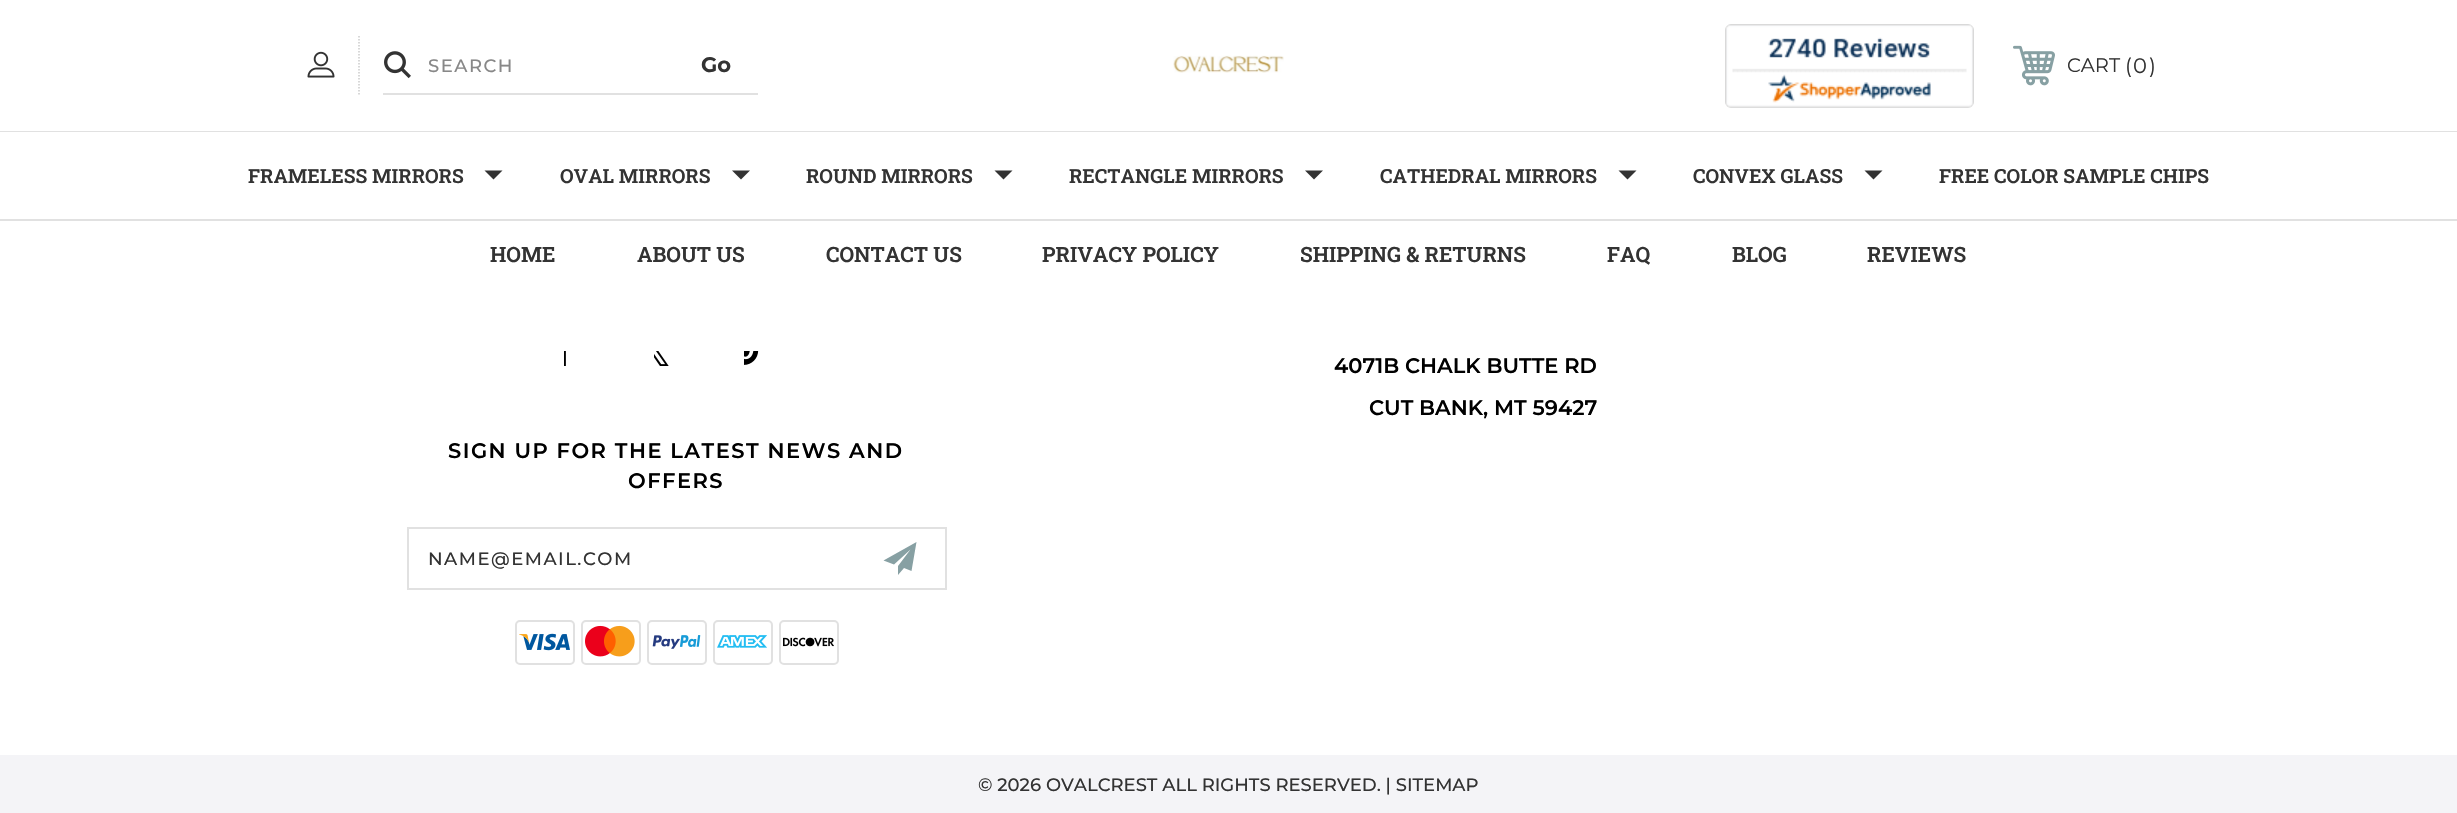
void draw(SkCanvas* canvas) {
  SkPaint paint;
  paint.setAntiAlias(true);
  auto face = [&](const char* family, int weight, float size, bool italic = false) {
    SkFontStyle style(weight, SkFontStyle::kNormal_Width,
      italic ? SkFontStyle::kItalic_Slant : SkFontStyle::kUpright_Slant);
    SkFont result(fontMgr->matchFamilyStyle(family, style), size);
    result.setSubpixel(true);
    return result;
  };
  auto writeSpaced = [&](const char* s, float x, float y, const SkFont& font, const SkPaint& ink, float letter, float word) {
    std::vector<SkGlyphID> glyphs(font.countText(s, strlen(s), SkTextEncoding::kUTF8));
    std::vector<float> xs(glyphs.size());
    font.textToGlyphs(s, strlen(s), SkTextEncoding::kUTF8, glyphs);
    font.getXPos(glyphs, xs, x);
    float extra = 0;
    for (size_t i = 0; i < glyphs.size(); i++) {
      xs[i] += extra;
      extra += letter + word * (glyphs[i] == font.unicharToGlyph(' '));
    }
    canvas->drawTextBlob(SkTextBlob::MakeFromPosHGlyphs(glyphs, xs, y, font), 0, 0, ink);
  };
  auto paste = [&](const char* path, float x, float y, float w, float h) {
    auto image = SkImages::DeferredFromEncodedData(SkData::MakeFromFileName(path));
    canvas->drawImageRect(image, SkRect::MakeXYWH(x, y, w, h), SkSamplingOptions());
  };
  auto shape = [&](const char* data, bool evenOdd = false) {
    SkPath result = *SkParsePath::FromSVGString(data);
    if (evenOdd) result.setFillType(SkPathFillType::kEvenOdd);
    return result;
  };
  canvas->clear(0xffffffff);
  paint.setColor(0xffe1e1e1);
  canvas->drawRect(SkRect::MakeXYWH(0, 219, 2457, 2), paint);
  paste("img/1.png", 307, 51, 28, 27);
  paint.setStroke(true);
  paint.setStrokeWidth(1.5f);
  paint.setColor(0xffcccccc);
  paint.setPathEffect(SkDashPathEffect::Make({{1.5f, 1.5f}}, 0));
  canvas->drawPath(shape("M359 36V94.5"), paint);
  paint.setPathEffect(nullptr);
  paste("img/2.png", 384, 51, 27, 28);
  paint.setStroke(false);
  paint.setColor(0xffe1e1e1);
  canvas->drawRect(SkRect::MakeXYWH(383, 93, 375, 2), paint);
  paste("img/3.png", 1173, 55, 111, 18);
  paste("img/4.png", 1725, 24, 249, 84);
  paste("img/5.png", 2013, 45, 42, 41);
  canvas->drawRect(SkRect::MakeXYWH(0, 131, 2457, 1), paint);
  paint.setColor(0xff333333);
  canvas->drawPath(shape("M484.5 170.5L493.5 179.5L502.5 170.5Z"), paint);
  canvas->drawPath(shape("M732 170.5L741 179.5L750 170.5Z"), paint);
  canvas->drawPath(shape("M994.5 170.5L1003.5 179.5L1012.5 170.5Z"), paint);
  canvas->drawPath(shape("M1305 170.5L1314 179.5L1323 170.5Z"), paint);
  canvas->drawPath(shape("M1618.5 170.5L1627.5 179.5L1636.5 170.5Z"), paint);
  canvas->drawPath(shape("M1864.5 170.5L1873.5 179.5L1882.5 170.5Z"), paint);
  paste("img/6.png", 564, 351, 2, 15);
  paste("img/7.png", 654, 351, 15, 15);
  paste("img/8.png", 744, 351, 15, 14);
  paint.setStroke(true);
  paint.setStrokeWidth(2);
  paint.setColor(0xffe1e1e1);
  canvas->drawRect(SkRect::MakeXYWH(408, 528, 538, 61), paint);
  paint.setStroke(false);
  paint.setColor(0xff87a0a3);
  canvas->drawPath(shape("M916.5 542L883.5 560.5L894 564.5L910.5 549.5L898 566V575L904 568L911.5 571Z"), paint);
  paint.setStroke(true);
  paint.setColor(0xffe1e1e1);
  canvas->drawRoundRect(SkRect::MakeXYWH(516, 621, 58, 43), 4, 4, paint);
  paste("img/9.png", 519, 633, 51, 18);
  canvas->drawRoundRect(SkRect::MakeXYWH(582, 621, 58, 43), 4, 4, paint);
  paste("img/10.png", 585, 625, 50, 32);
  canvas->drawRoundRect(SkRect::MakeXYWH(648, 621, 58, 43), 4, 4, paint);
  paste("img/11.png", 652, 635, 49, 14);
  canvas->drawRoundRect(SkRect::MakeXYWH(714, 621, 58, 43), 4, 4, paint);
  paste("img/12.png", 717, 635, 50, 13);
  canvas->drawRoundRect(SkRect::MakeXYWH(780, 621, 58, 43), 4, 4, paint);
  paste("img/13.png", 783, 637, 51, 10);
  paint.setStroke(false);
  paint.setColor(0xfff4f4f7);
  canvas->drawRect(SkRect::MakeXYWH(0, 755, 2457, 58), paint);
  auto f0 = face("Montserrat", 500, 18);
  paint.setColor(0xff888888);
  writeSpaced("SEARCH", 428, 72, f0, paint, 1.5f, 0);
  auto f1 = face("Montserrat", 700, 21);
  paint.setColor(0xff333333);
  canvas->drawString("Go", 701, 72, f1, paint);
  auto f2 = face("Montserrat", 400, 19.5f);
  canvas->drawString("CART", 2067, 72, f2, paint);
  auto f3 = face("Montserrat", 400, 21);
  {
    const struct { const char* s; float x, y; } items[] = {
      {"(", 2125, 73},
      {"0", 2133, 73},
      {")", 2149, 73},
    };
    for (auto [s, x, y] : items) {
      canvas->drawString(s, x, y, f3, paint);
    }
  }
  auto f4 = face("Roboto Slab", 600, 19.5f);
  {
    const struct { const char* s; float x, y; } items[] = {
      {"FRAMELESS MIRRORS", 248, 183},
      {"OVAL MIRRORS", 560, 183},
      {"ROUND MIRRORS", 806, 183},
      {"RECTANGLE MIRRORS", 1069, 183},
      {"CATHEDRAL MIRRORS", 1380, 183},
      {"CONVEX GLASS", 1693, 183},
      {"FREE COLOR SAMPLE CHIPS", 1939, 183},
    };
    for (auto [s, x, y] : items) {
      canvas->drawString(s, x, y, f4, paint);
    }
  }
  auto f5 = face("Roboto Slab", 600, 21);
  {
    const struct { const char* s; float x, y; } items[] = {
      {"HOME", 490, 262},
      {"ABOUT US", 637, 262},
      {"CONTACT US", 826, 262},
      {"PRIVACY POLICY", 1042, 262},
      {"SHIPPING & RETURNS", 1300, 262},
      {"FAQ", 1607, 262},
      {"BLOG", 1732, 262},
      {"REVIEWS", 1867, 262},
    };
    for (auto [s, x, y] : items) {
      canvas->drawString(s, x, y, f5, paint);
    }
  }
  auto f6 = face("Montserrat", 600, 21);
  paint.setColor(0xff000000);
  canvas->drawString("4071B CHALK BUTTE RD", 1334, 373, f6, paint);
  canvas->drawString("CUT BANK, MT 59427", 1369, 415, f6, paint);
  writeSpaced("SIGN UP FOR THE LATEST NEWS AND", 448, 458, f6, paint, 1.5f, 0);
  writeSpaced("OFFERS", 628, 488, f6, paint, 1.5f, 0);
  paint.setColor(0xff333333);
  writeSpaced("NAME@EMAIL.COM", 428, 565, f0, paint, 1.5f, 0);
  canvas->drawString("© 2026 OVALCREST ALL RIGHTS RESERVED. | SITEMAP", 978, 791, f0, paint);
}
